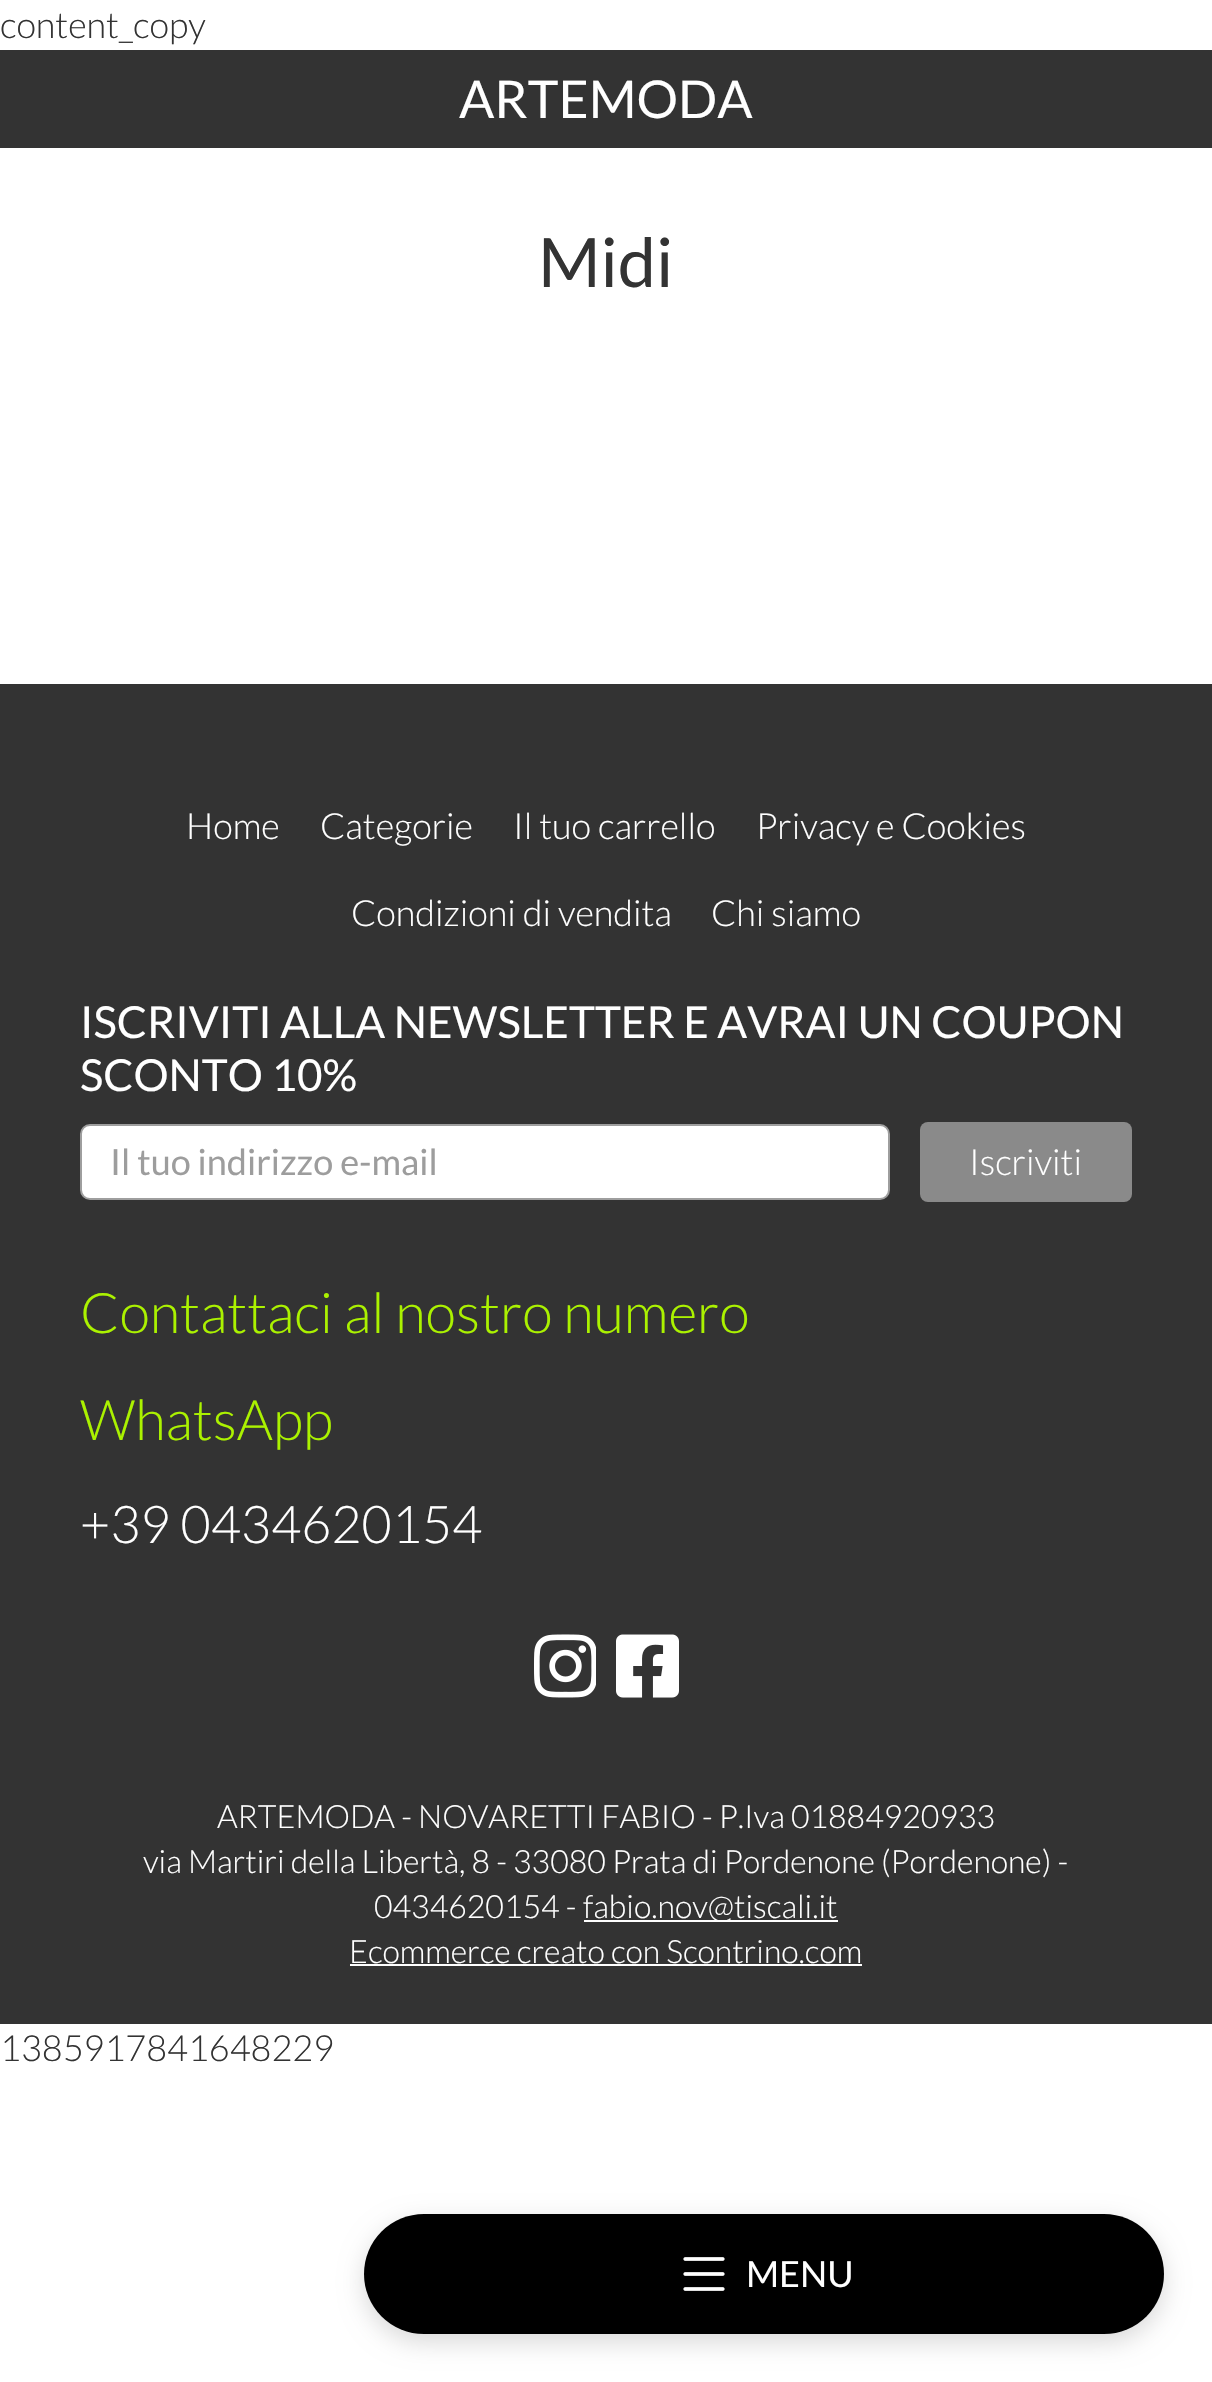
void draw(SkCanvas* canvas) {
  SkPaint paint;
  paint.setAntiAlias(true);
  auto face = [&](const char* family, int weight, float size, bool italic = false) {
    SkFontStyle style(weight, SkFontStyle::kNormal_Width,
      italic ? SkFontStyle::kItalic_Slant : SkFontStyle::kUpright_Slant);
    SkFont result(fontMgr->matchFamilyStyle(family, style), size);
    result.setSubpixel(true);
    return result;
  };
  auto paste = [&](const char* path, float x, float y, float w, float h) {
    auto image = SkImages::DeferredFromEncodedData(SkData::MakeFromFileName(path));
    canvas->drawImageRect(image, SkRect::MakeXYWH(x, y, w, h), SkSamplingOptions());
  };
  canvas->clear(0xffffffff);
  paint.setColor(0xff333333);
  canvas->drawRect(SkRect::MakeXYWH(0, 50, 1212, 98), paint);
  canvas->drawRect(SkRect::MakeXYWH(0, 684, 1212, 1340), paint);
  paint.setColor(0xffffffff);
  canvas->drawRoundRect(SkRect::MakeXYWH(81, 1125, 808, 74), 9, 9, paint);
  paint.setStroke(true);
  paint.setStrokeWidth(2);
  paint.setColor(0xff9e9e9e);
  canvas->drawRoundRect(SkRect::MakeXYWH(81, 1125, 808, 74), 9, 9, paint);
  paint.setStroke(false);
  paint.setColor(0xff8a8a8a);
  canvas->drawRoundRect(SkRect::MakeXYWH(920, 1122, 212, 80), 8, 8, paint);
  paste("img/1.png", 534, 1634, 62, 64);
  paste("img/2.png", 616, 1634, 63, 64);
  paint.setColor(0xffffffff);
  canvas->drawRect(SkRect::MakeXYWH(584, 1920, 254, 2), paint);
  canvas->drawRect(SkRect::MakeXYWH(350, 1964, 512, 2), paint);
  paint.setColor(0x26000000);
  paint.setMaskFilter(SkMaskFilter::MakeBlur(kNormal_SkBlurStyle, 12));
  canvas->drawRoundRect(SkRect::MakeXYWH(364, 2222, 800, 120), 60, 60, paint);
  paint.setMaskFilter(nullptr);
  paint.setColor(0xff000000);
  canvas->drawRoundRect(SkRect::MakeXYWH(364, 2214, 800, 120), 60, 60, paint);
  paste("img/3.png", 683, 2257, 42, 34);
  auto f0 = face("Lato", 300, 36);
  paint.setColor(0xff333333);
  canvas->drawString("content_copy", 0, 38, f0, paint);
  auto f1 = face("Lato", 400, 52);
  paint.setColor(0xffffffff);
  canvas->drawString("ARTEMODA", 459, 118, f1, paint);
  auto f2 = face("Lato", 400, 68);
  paint.setColor(0xff333333);
  canvas->drawString("Midi", 538, 287, f2, paint);
  paint.setColor(0xffffffff);
  {
    const struct { const char* s; float x, y; } items[] = {
      {"Home", 186, 839},
      {"Categorie", 320, 839},
      {"Il tuo carrello", 513, 839},
      {"Privacy e Cookies", 756, 839},
      {"Condizioni di vendita", 351, 926},
      {"Chi siamo", 711, 926},
    };
    for (auto [s, x, y] : items) {
      canvas->drawString(s, x, y, f0, paint);
    }
  }
  auto f3 = face("Lato", 400, 44);
  canvas->drawString("ISCRIVITI ALLA NEWSLETTER E AVRAI UN COUPON", 80, 1038, f3, paint);
  canvas->drawString("SCONTO 10%", 80, 1091, f3, paint);
  auto f4 = face("Lato", 400, 36);
  paint.setColor(0xff9d9d9d);
  canvas->drawString("Il tuo indirizzo e-mail", 110, 1175, f4, paint);
  paint.setColor(0xffffffff);
  canvas->drawString("Iscriviti", 969, 1175, f0, paint);
  auto f5 = face("Lato", 300, 56);
  paint.setColor(0xffabf200);
  canvas->drawString("Contattaci al nostro numero", 80, 1333, f5, paint);
  canvas->drawString("WhatsApp", 80, 1440, f5, paint);
  auto f6 = face("Lato", 300, 52);
  paint.setColor(0xffffffff);
  canvas->drawString("+39 0434620154", 80, 1543, f6, paint);
  auto f7 = face("Lato", 300, 32);
  {
    const struct { const char* s; float x, y; } items[] = {
      {"ARTEMODA - NOVARETTI FABIO - P.Iva 01884920933", 217, 1828},
      {"via Martiri della Libertà, 8 - 33080 Prata di Pordenone (Pordenone) -", 143, 1873},
      {"0434620154 -", 374, 1918},
      {"fabio.nov@tiscali.it", 583, 1918},
      {"Ecommerce creato con Scontrino.com", 349, 1963},
    };
    for (auto [s, x, y] : items) {
      canvas->drawString(s, x, y, f7, paint);
    }
  }
  canvas->drawString("MENU", 746, 2287, f4, paint);
  paint.setColor(0xff333333);
  canvas->drawString("1385917841648229", 0, 2061, f0, paint);
}
